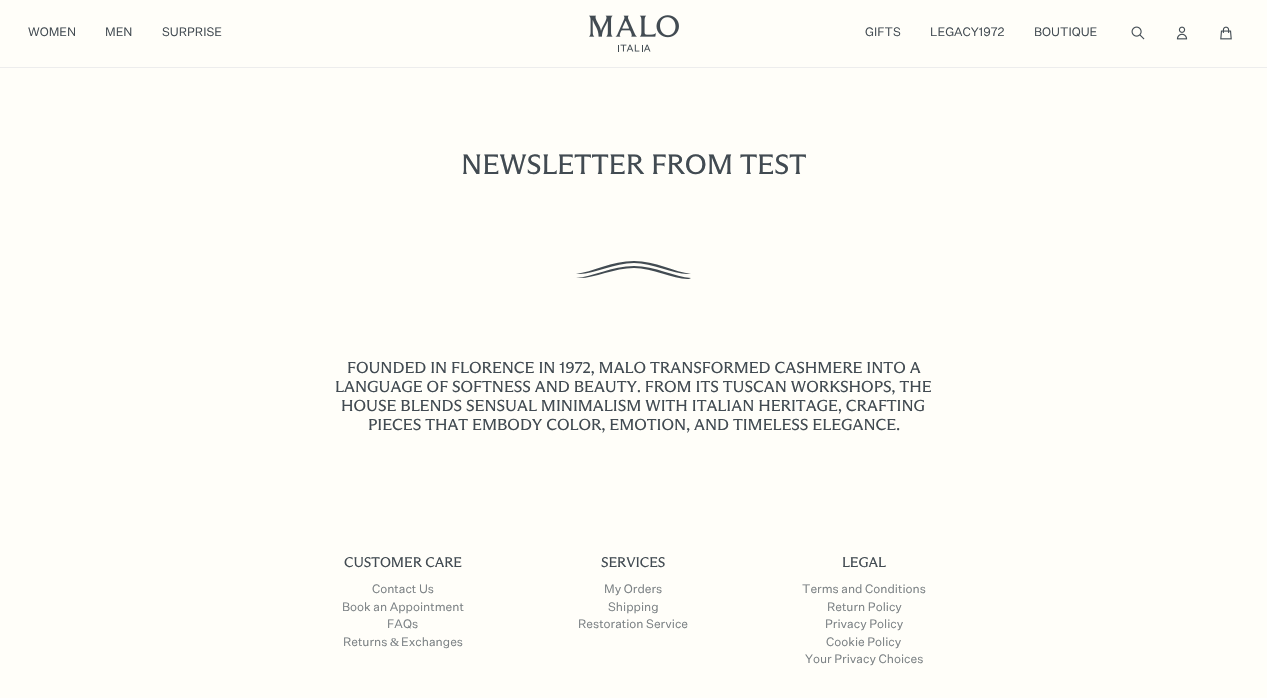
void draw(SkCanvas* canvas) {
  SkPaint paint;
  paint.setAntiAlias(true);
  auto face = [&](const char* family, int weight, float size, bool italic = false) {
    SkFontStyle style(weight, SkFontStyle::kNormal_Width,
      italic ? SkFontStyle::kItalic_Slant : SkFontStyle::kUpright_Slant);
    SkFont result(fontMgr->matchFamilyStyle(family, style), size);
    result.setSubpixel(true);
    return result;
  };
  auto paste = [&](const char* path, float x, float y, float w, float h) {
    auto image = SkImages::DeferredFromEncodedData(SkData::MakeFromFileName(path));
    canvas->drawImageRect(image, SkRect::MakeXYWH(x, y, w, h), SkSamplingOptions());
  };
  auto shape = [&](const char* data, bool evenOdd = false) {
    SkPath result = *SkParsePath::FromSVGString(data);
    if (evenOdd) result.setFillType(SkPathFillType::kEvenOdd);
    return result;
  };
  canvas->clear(0xfffffef9);
  paint.setColor(0xffededed);
  canvas->drawRect(SkRect::MakeXYWH(0, 67, 1267, 1), paint);
  paste("img/1.png", 589, 15, 90, 37);
  paste("img/2.png", 1131, 26, 14, 14);
  paste("img/3.png", 1176, 26, 12, 14);
  paste("img/4.png", 1220, 26, 12, 14);
  paint.setColor(0xff424b52);
  canvas->drawPath(shape("M689 274H691C675 272 655 261 634 261C612 261 592 272 576 274H578C592 275 614 263 634 263C653 263 675 275 689 274ZM689 279L691 278C675 277 655 266 634 266C612 266 592 277 576 278H578C592 279 614 268 634 268C653 268 675 280 689 279Z"), paint);
  auto f0 = face("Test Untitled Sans", 400, 12);
  {
    const struct { const char* s; float x, y; } items[] = {
      {"WOMEN", 28, 36},
      {"MEN", 105, 36},
      {"SURPRISE", 162, 36},
      {"GIFTS", 865, 36},
      {"LEGACY1972", 930, 36},
      {"BOUTIQUE", 1034, 36},
    };
    for (auto [s, x, y] : items) {
      canvas->drawString(s, x, y, f0, paint);
    }
  }
  auto f1 = face("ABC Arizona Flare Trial", 400, 28);
  canvas->drawString("NEWSLETTER FROM TEST", 461, 174, f1, paint);
  auto f2 = face("ABC Arizona Flare Trial", 400, 16);
  {
    const struct { const char* s; float x, y; } items[] = {
      {"FOUNDED IN FLORENCE IN 1972, MALO TRANSFORMED CASHMERE INTO A", 347, 373},
      {"LANGUAGE OF SOFTNESS AND BEAUTY. FROM ITS TUSCAN WORKSHOPS, THE", 335, 392},
      {"HOUSE BLENDS SENSUAL MINIMALISM WITH ITALIAN HERITAGE, CRAFTING", 341, 411},
      {"PIECES THAT EMBODY COLOR, EMOTION, AND TIMELESS ELEGANCE.", 368, 430},
    };
    for (auto [s, x, y] : items) {
      canvas->drawString(s, x, y, f2, paint);
    }
  }
  auto f3 = face("ABC Arizona Flare Trial", 400, 14);
  canvas->drawString("CUSTOMER CARE", 344, 567, f3, paint);
  paint.setColor(0xff7b8184);
  {
    const struct { const char* s; float x, y; } items[] = {
      {"Contact Us", 372, 593},
      {"Book an Appointment", 342, 611},
      {"FAQs", 387, 628},
      {"Returns", 343, 646},
    };
    for (auto [s, x, y] : items) {
      canvas->drawString(s, x, y, f0, paint);
    }
  }
  auto f4 = face("Liberation Serif", 400, 12);
  canvas->drawString("&", 390, 646, f4, paint);
  canvas->drawString("Exchanges", 401, 646, f0, paint);
  paint.setColor(0xff424b52);
  canvas->drawString("SERVICES", 601, 567, f3, paint);
  paint.setColor(0xff7b8184);
  {
    const struct { const char* s; float x, y; } items[] = {
      {"My Orders", 604, 593},
      {"Shipping", 608, 611},
      {"Restoration Service", 578, 628},
    };
    for (auto [s, x, y] : items) {
      canvas->drawString(s, x, y, f0, paint);
    }
  }
  paint.setColor(0xff424b52);
  canvas->drawString("LEGAL", 842, 567, f3, paint);
  paint.setColor(0xff7b8184);
  {
    const struct { const char* s; float x, y; } items[] = {
      {"Terms and Conditions", 802, 593},
      {"Return Policy", 827, 611},
      {"Privacy Policy", 825, 628},
      {"Cookie Policy", 826, 646},
      {"Your Privacy Choices", 805, 663},
    };
    for (auto [s, x, y] : items) {
      canvas->drawString(s, x, y, f0, paint);
    }
  }
}
